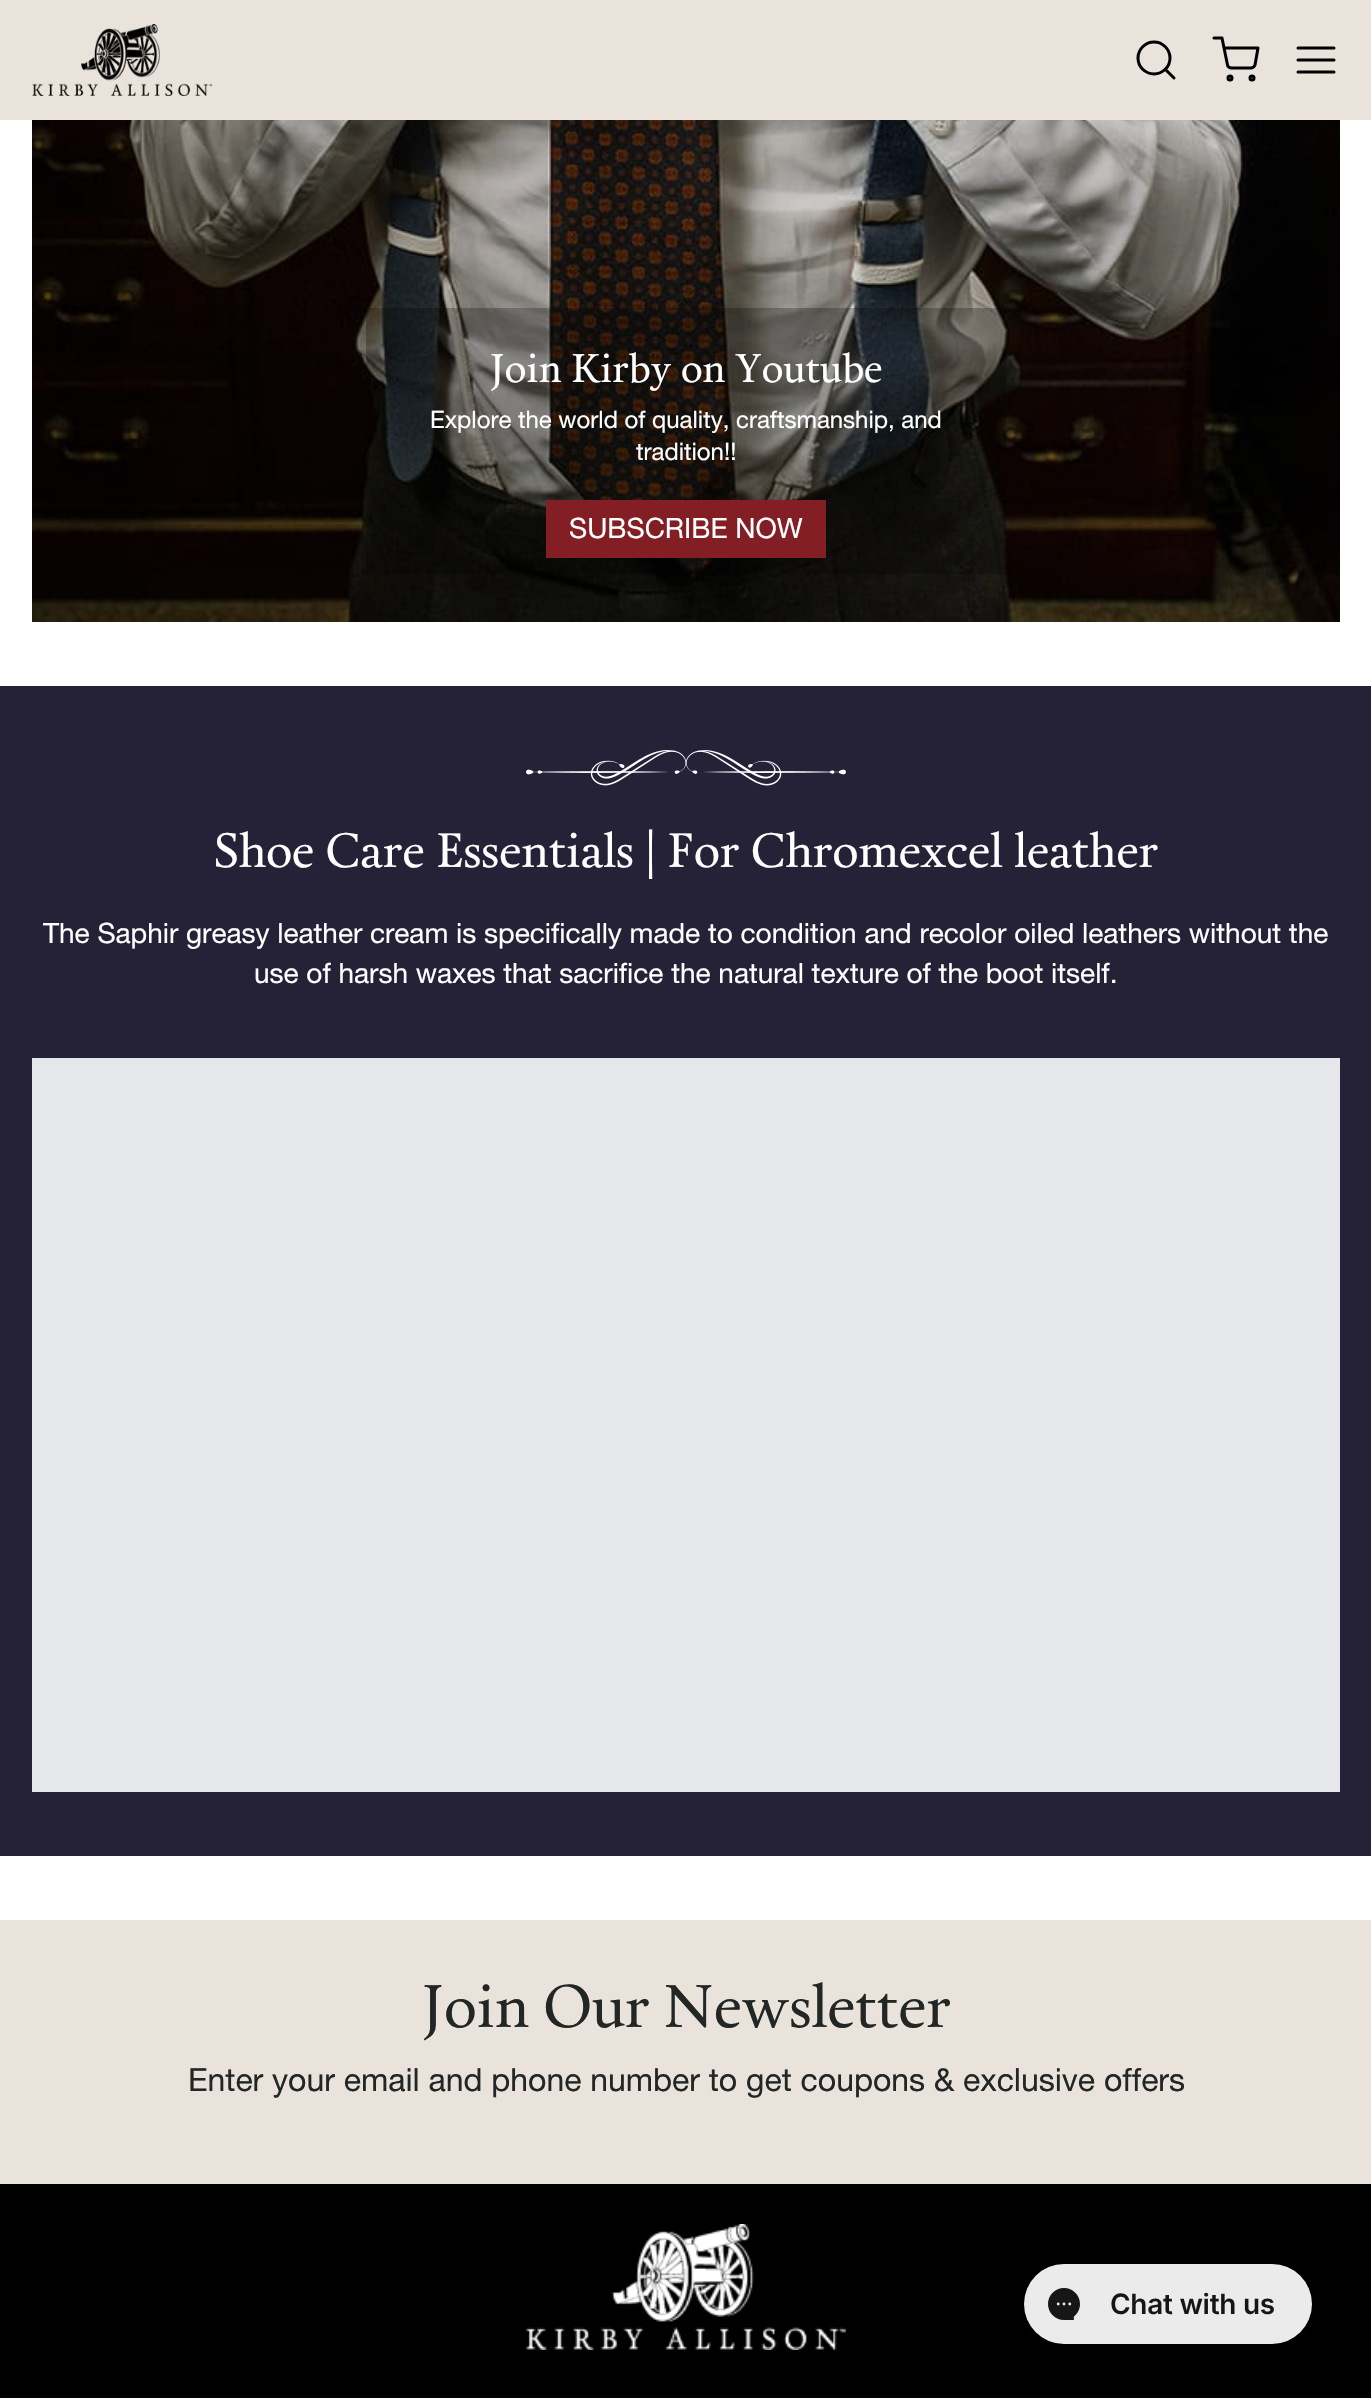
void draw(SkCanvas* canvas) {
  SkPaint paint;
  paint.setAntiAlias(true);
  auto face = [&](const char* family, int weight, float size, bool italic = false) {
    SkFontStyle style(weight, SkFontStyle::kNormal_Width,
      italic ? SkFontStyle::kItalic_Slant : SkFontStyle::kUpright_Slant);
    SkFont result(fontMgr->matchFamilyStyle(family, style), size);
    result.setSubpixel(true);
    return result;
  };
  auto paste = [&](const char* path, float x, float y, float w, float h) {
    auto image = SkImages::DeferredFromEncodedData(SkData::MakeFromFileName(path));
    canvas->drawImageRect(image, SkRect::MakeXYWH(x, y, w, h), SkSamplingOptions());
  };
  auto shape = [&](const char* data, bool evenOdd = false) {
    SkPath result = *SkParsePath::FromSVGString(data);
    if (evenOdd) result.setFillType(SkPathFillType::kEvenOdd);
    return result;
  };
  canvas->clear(0xffffffff);
  paint.setColor(0xffe9e3db);
  canvas->drawRect(SkRect::MakeXYWH(0, 0, 1371, 120), paint);
  paste("img/1.png", 32, 24, 180, 72);
  paint.setStroke(true);
  paint.setStrokeWidth(3);
  paint.setColor(0xff000000);
  canvas->drawCircle(1154, 58, 16, paint);
  paint.setStrokeCap(SkPaint::kRound_Cap);
  paint.setStrokeJoin(SkPaint::kRound_Join);
  canvas->drawPath(shape("M1174 78L1165.5 69.5"), paint);
  paint.setStrokeCap(SkPaint::kButt_Cap);
  paint.setStrokeJoin(SkPaint::kMiter_Join);
  canvas->drawCircle(1230, 78, 2, paint);
  canvas->drawCircle(1252, 78, 2, paint);
  paint.setStrokeCap(SkPaint::kRound_Cap);
  paint.setStrokeJoin(SkPaint::kRound_Join);
  canvas->drawPath(shape("M1214 38H1222L1227.5 65C1227.5 66.5 1229.5 68 1231.5 68H1251C1252.5 68 1254.5 66.5 1255 65L1258 48H1224"), paint);
  canvas->drawPath(shape("M1298 60H1334M1298 48H1334M1298 72H1334"), paint);
  paste("img/2.png", 32, 120, 1308, 502);
  paint.setStroke(false);
  {
    const struct { float x, y, w, h; SkColor color; } items[] = {
      {366, 308, 640, 266, 0x40000000},
      {546, 500, 280, 58, 0xff831e25},
      {0, 686, 1371, 1170, 0xff252238},
    };
    for (auto [x, y, w, h, color] : items) {
      paint.setColor(color);
      canvas->drawRect(SkRect::MakeXYWH(x, y, w, h), paint);
    }
  }
  paste("img/3.png", 526, 750, 320, 36);
  {
    const struct { float x, y, w, h; SkColor color; } items[] = {
      {32, 1058, 1308, 734, 0xffe5e7eb},
      {0, 1920, 1371, 264, 0xffe9e3db},
      {0, 2184, 1371, 214, 0xff000000},
    };
    for (auto [x, y, w, h, color] : items) {
      paint.setColor(color);
      canvas->drawRect(SkRect::MakeXYWH(x, y, w, h), paint);
    }
  }
  paste("img/4.png", 526, 2224, 320, 126);
  paste("img/5.png", 1024, 2264, 288, 80);
  auto f0 = face("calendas", 400, 40);
  paint.setColor(0xffffffff);
  canvas->drawString("Join Kirby on Youtube", 490, 382, f0, paint);
  auto f1 = face("Helvetica Neue", 400, 24);
  canvas->drawString("Explore the world of quality, craftsmanship, and", 430, 428, f1, paint);
  canvas->drawString("tradition!!", 636, 460, f1, paint);
  auto f2 = face("Helvetica Neue", 400, 28);
  canvas->drawString("SUBSCRIBE NOW", 569, 538, f2, paint);
  auto f3 = face("calendas", 400, 48);
  canvas->drawString("Shoe Care Essentials | For Chromexcel leather", 214, 867, f3, paint);
  canvas->drawString("The Saphir greasy leather cream is specifically made to condition and recolor oiled leathers without the", 43, 943, f2, paint);
  canvas->drawString("use of harsh waxes that sacrifice the natural texture of the boot itself.", 254, 983, f2, paint);
  auto f4 = face("calendas", 400, 60);
  paint.setColor(0xff222625);
  canvas->drawString("Join Our Newsletter", 422, 2027, f4, paint);
  auto f5 = face("Helvetica Neue", 400, 32);
  canvas->drawString("Enter your email and phone number to get coupons & exclusive offers", 188, 2091, f5, paint);
}
